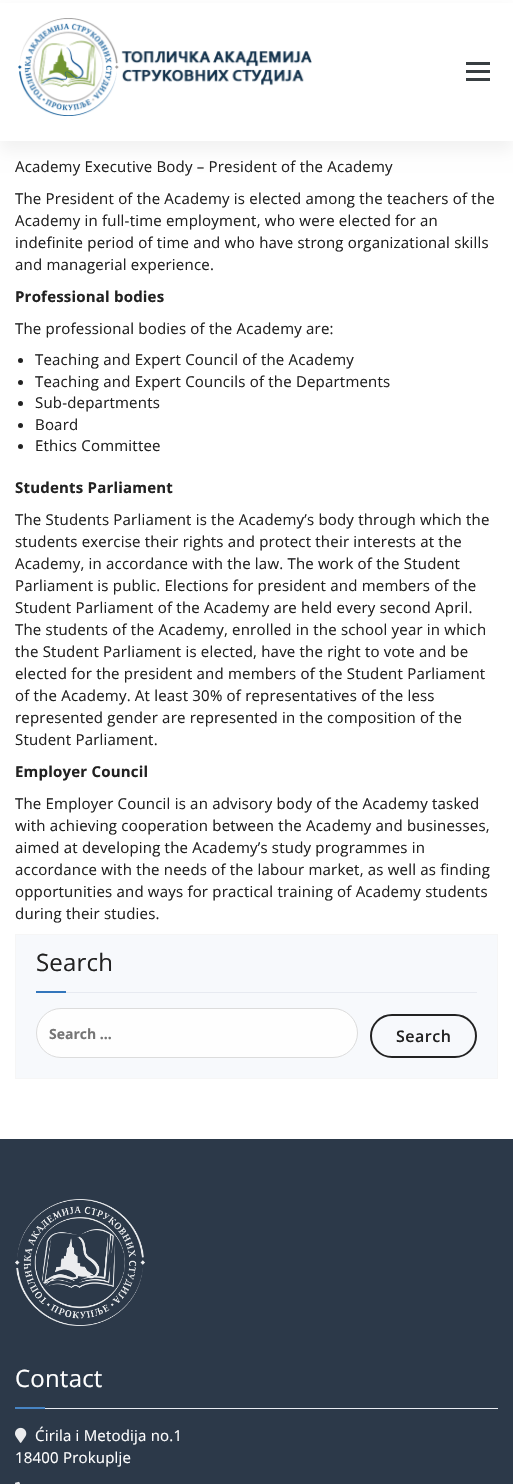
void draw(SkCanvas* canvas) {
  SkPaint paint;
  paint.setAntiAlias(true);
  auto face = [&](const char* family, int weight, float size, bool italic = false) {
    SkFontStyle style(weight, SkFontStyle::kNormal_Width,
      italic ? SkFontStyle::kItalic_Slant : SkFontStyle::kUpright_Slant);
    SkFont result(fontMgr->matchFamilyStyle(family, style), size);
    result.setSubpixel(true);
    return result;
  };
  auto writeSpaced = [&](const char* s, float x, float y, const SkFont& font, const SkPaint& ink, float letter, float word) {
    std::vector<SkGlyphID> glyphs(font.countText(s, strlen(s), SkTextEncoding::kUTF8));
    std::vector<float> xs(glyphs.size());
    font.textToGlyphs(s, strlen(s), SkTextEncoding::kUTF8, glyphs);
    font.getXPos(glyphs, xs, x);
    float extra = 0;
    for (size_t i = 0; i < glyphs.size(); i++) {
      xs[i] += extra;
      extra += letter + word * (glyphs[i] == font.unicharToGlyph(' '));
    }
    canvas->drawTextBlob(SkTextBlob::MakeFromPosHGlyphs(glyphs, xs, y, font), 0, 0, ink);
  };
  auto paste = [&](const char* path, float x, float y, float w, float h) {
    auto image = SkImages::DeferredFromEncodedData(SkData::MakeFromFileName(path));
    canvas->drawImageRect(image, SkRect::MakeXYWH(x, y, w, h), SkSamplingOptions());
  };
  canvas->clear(0xffffffff);
  paint.setColor(0x0d000000);
  paint.setMaskFilter(SkMaskFilter::MakeBlur(kNormal_SkBlurStyle, 7.5f));
  canvas->drawRect(SkRect::MakeXYWH(0, 9, 513, 142), paint);
  paint.setMaskFilter(nullptr);
  paint.setColor(0xffffffff);
  canvas->drawRect(SkRect::MakeXYWH(0, 3, 513, 138), paint);
  paste("img/1.png", 18, 18, 294, 98);
  {
    const struct { float x, y, w, h; SkColor color; } items[] = {
      {466, 62, 24, 3, 0xff383e41},
      {466, 70, 24, 3, 0xff383e41},
      {466, 78, 24, 3, 0xff383e41},
    };
    for (auto [x, y, w, h, color] : items) {
      paint.setColor(color);
      canvas->drawRect(SkRect::MakeXYWH(x, y, w, h), paint);
    }
  }
  paint.setColor(0xff222222);
  canvas->drawCircle(20.5f, 360.5f, 2.5f, paint);
  canvas->drawCircle(20.5f, 382.5f, 2.5f, paint);
  canvas->drawCircle(20.5f, 403.5f, 2.5f, paint);
  canvas->drawCircle(20.5f, 425.5f, 2.5f, paint);
  canvas->drawCircle(20.5f, 446.5f, 2.5f, paint);
  paint.setColor(0xfff7f9fc);
  canvas->drawRect(SkRect::MakeXYWH(15.5f, 934.5f, 482, 144), paint);
  paint.setStroke(true);
  paint.setStrokeWidth(1);
  paint.setColor(0xfff6f6f6);
  canvas->drawRect(SkRect::MakeXYWH(15.5f, 934.5f, 482, 144), paint);
  paint.setStroke(false);
  paint.setColor(0xffe7eaf1);
  canvas->drawRect(SkRect::MakeXYWH(66, 992, 411, 1), paint);
  paint.setColor(0xff3376bc);
  canvas->drawRect(SkRect::MakeXYWH(36, 991, 30, 2), paint);
  paint.setColor(0xfffefefe);
  canvas->drawRoundRect(SkRect::MakeXYWH(36.5f, 1008.5f, 321, 49), 24.5f, 24.5f, paint);
  paint.setStroke(true);
  paint.setColor(0xffdcdcdc);
  canvas->drawRoundRect(SkRect::MakeXYWH(36.5f, 1008.5f, 321, 49), 24.5f, 24.5f, paint);
  paint.setStrokeWidth(2);
  paint.setColor(0xff222222);
  canvas->drawRoundRect(SkRect::MakeXYWH(371, 1015, 105, 42), 21, 21, paint);
  paint.setStroke(false);
  paint.setColor(0xff2c3949);
  canvas->drawRect(SkRect::MakeXYWH(0, 1139, 513, 345), paint);
  paste("img/2.png", 15, 1199, 130, 127);
  paint.setColor(0xffe9ecf2);
  canvas->drawRect(SkRect::MakeXYWH(45, 1408, 453, 1), paint);
  paint.setColor(0xff4784c3);
  canvas->drawRect(SkRect::MakeXYWH(15, 1407, 30, 2), paint);
  paste("img/3.png", 15, 1427, 12, 16);
  paste("img/4.png", 15, 1481, 5, 3);
  auto f0 = face("Open Sans", 400, 15);
  paint.setColor(0xff222222);
  {
    const struct { const char* s; float x, y; } items[] = {
      {"Academy Executive Body – President of the Academy", 15, 172},
      {"The President of the Academy is elected among the teachers of the", 15, 204},
      {"Academy in full-time employment, who were elected for an", 15, 226},
      {"indefinite period of time and who have strong organizational skills", 15, 248},
      {"and managerial experience.", 15, 270},
    };
    for (auto [s, x, y] : items) {
      writeSpaced(s, x, y, f0, paint, 0.2f, 0);
    }
  }
  auto f1 = face("Open Sans", 700, 15);
  writeSpaced("Professional bodies", 15, 302, f1, paint, 0.2f, 0);
  {
    const struct { const char* s; float x, y; } items[] = {
      {"The professional bodies of the Academy are:", 15, 334},
      {"Teaching and Expert Council of the Academy", 35, 365},
      {"Teaching and Expert Councils of the Departments", 35, 387},
      {"Sub-departments", 35, 408},
      {"Board", 35, 430},
      {"Ethics Committee", 35, 451},
    };
    for (auto [s, x, y] : items) {
      writeSpaced(s, x, y, f0, paint, 0.2f, 0);
    }
  }
  writeSpaced("Students Parliament", 15, 493, f1, paint, 0.2f, 0);
  {
    const struct { const char* s; float x, y; } items[] = {
      {"The Students Parliament is the Academy’s body through which the", 15, 525},
      {"students exercise their rights and protect their interests at the", 15, 547},
      {"Academy, in accordance with the law. The work of the Student", 15, 569},
      {"Parliament is public. Elections for president and members of the", 15, 591},
      {"Student Parliament of the Academy are held every second April.", 15, 613},
      {"The students of the Academy, enrolled in the school year in which", 15, 635},
      {"the Student Parliament is elected, have the right to vote and be", 15, 657},
      {"elected for the president and members of the Student Parliament", 15, 679},
      {"of the Academy. At least 30% of representatives of the less", 15, 701},
      {"represented gender are represented in the composition of the", 15, 723},
      {"Student Parliament.", 15, 745},
    };
    for (auto [s, x, y] : items) {
      writeSpaced(s, x, y, f0, paint, 0.2f, 0);
    }
  }
  writeSpaced("Employer Council", 15, 777, f1, paint, 0.2f, 0);
  {
    const struct { const char* s; float x, y; } items[] = {
      {"The Employer Council is an advisory body of the Academy tasked", 15, 809},
      {"with achieving cooperation between the Academy and businesses,", 15, 831},
      {"aimed at developing the Academy’s study programmes in", 15, 853},
      {"accordance with the needs of the labour market, as well as finding", 15, 875},
      {"opportunities and ways for practical training of Academy students", 15, 897},
      {"during their studies.", 15, 919},
    };
    for (auto [s, x, y] : items) {
      writeSpaced(s, x, y, f0, paint, 0.2f, 0);
    }
  }
  auto f2 = face("Open Sans", 400, 24);
  writeSpaced("Search", 36, 971, f2, paint, 0.2f, 0);
  auto f3 = face("Open Sans", 700, 14);
  paint.setColor(0xff757575);
  canvas->drawString("Search …", 49, 1039, f3, paint);
  auto f4 = face("Open Sans", 600, 16);
  paint.setColor(0xff222222);
  writeSpaced("Search", 396, 1042, f4, paint, 0.5f, 0);
  paint.setColor(0xffffffff);
  writeSpaced("Contact", 15, 1387, f2, paint, 0.2f, 0);
  writeSpaced("Ćirila i Metodija no.1", 35, 1441, f0, paint, 0.2f, 0);
  writeSpaced("18400 Prokuplje", 15, 1463, f0, paint, 0.2f, 0);
}
